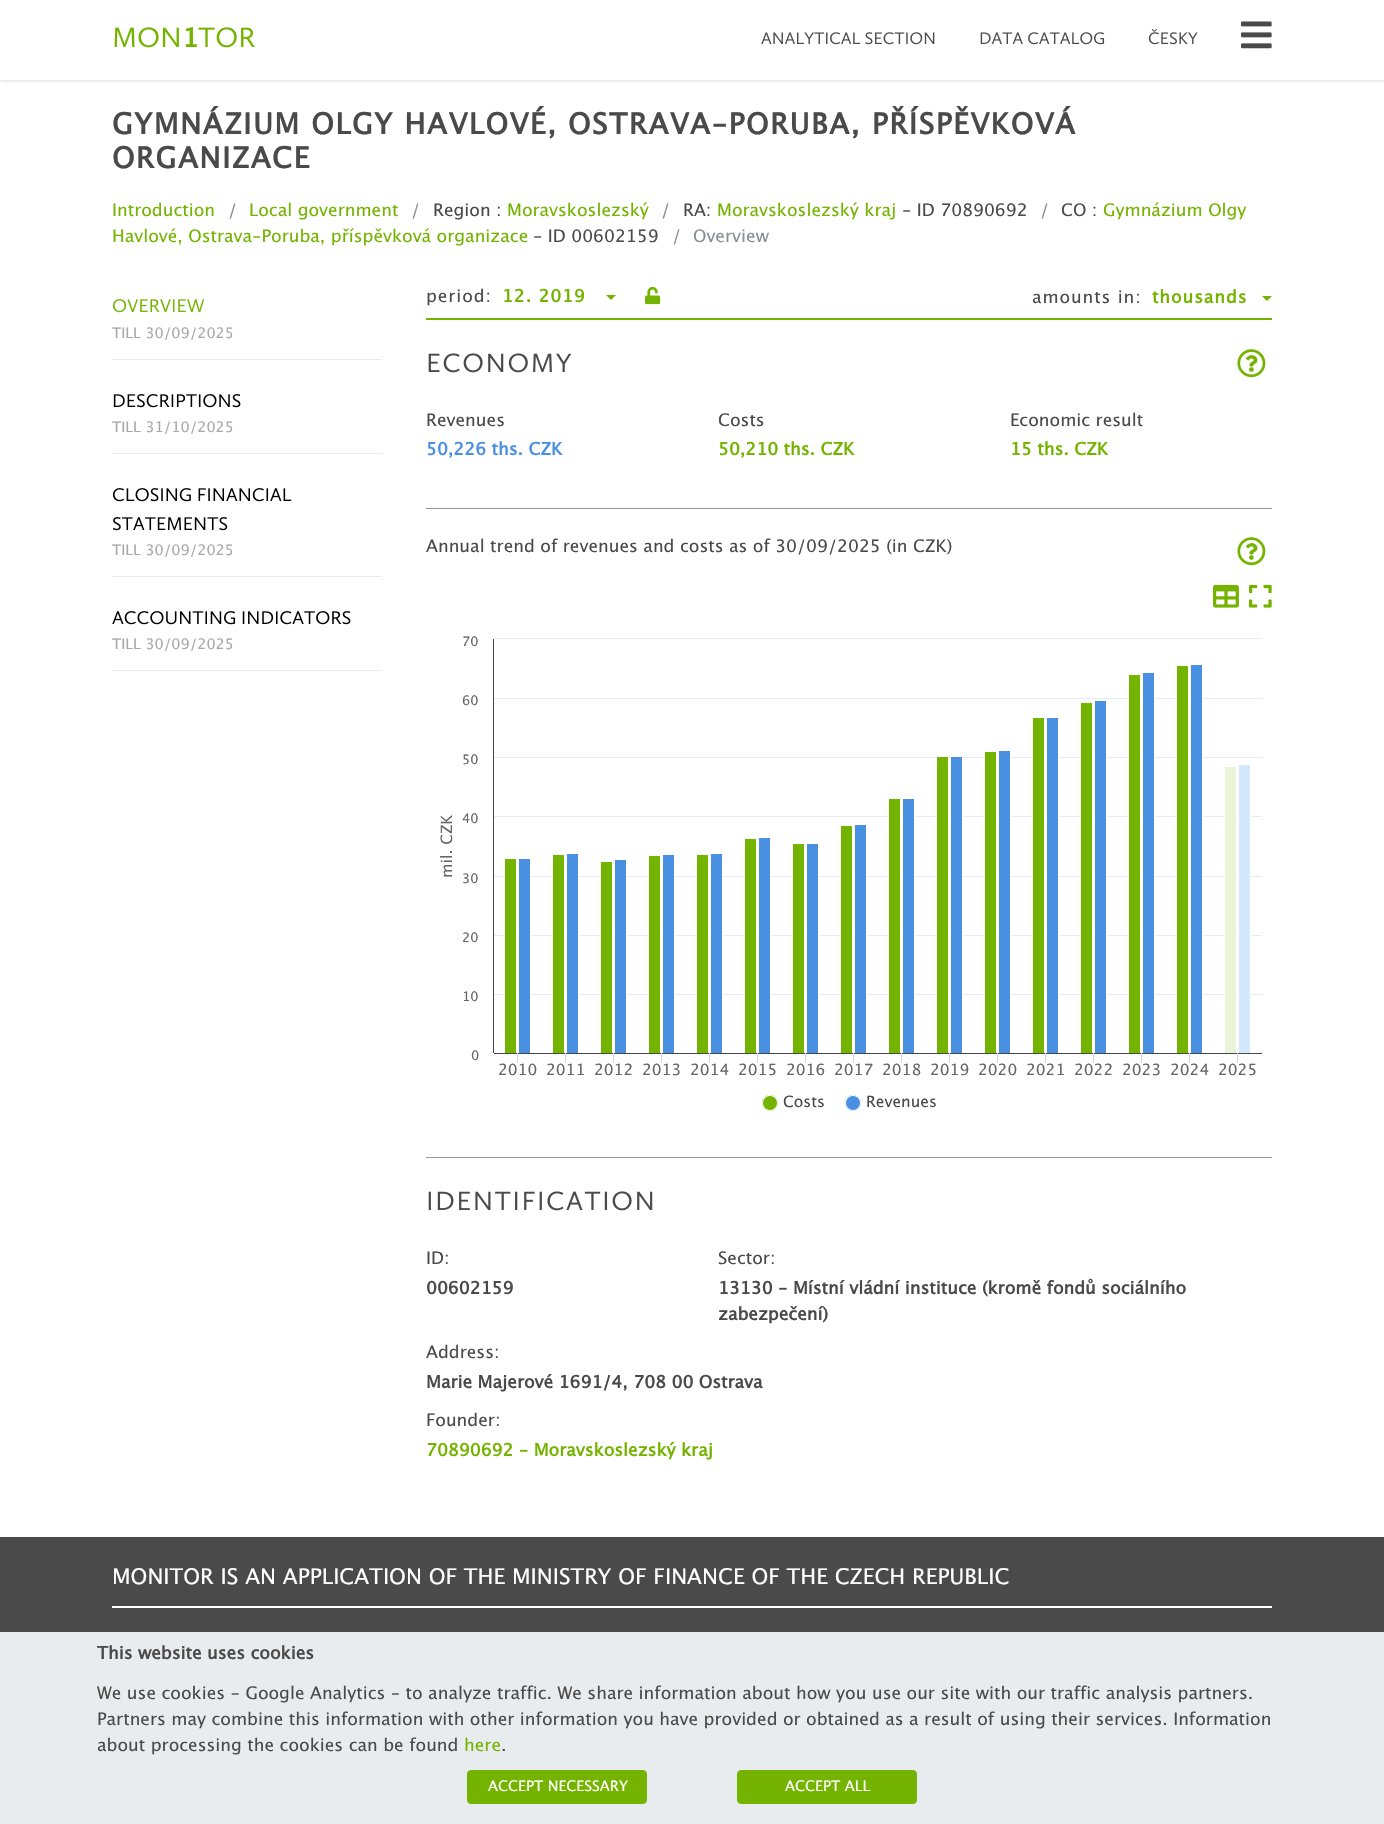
void draw(SkCanvas* canvas) {
  SkPaint paint;
  paint.setAntiAlias(true);
  auto face = [&](const char* family, int weight, float size, bool italic = false) {
    SkFontStyle style(weight, SkFontStyle::kNormal_Width,
      italic ? SkFontStyle::kItalic_Slant : SkFontStyle::kUpright_Slant);
    SkFont result(fontMgr->matchFamilyStyle(family, style), size);
    result.setSubpixel(true);
    return result;
  };
  auto writeSpaced = [&](const char* s, float x, float y, const SkFont& font, const SkPaint& ink, float letter, float word) {
    std::vector<SkGlyphID> glyphs(font.countText(s, strlen(s), SkTextEncoding::kUTF8));
    std::vector<float> xs(glyphs.size());
    font.textToGlyphs(s, strlen(s), SkTextEncoding::kUTF8, glyphs);
    font.getXPos(glyphs, xs, x);
    float extra = 0;
    for (size_t i = 0; i < glyphs.size(); i++) {
      xs[i] += extra;
      extra += letter + word * (glyphs[i] == font.unicharToGlyph(' '));
    }
    canvas->drawTextBlob(SkTextBlob::MakeFromPosHGlyphs(glyphs, xs, y, font), 0, 0, ink);
  };
  auto paste = [&](const char* path, float x, float y, float w, float h) {
    auto image = SkImages::DeferredFromEncodedData(SkData::MakeFromFileName(path));
    canvas->drawImageRect(image, SkRect::MakeXYWH(x, y, w, h), SkSamplingOptions());
  };
  auto shape = [&](const char* data, bool evenOdd = false) {
    SkPath result = *SkParsePath::FromSVGString(data);
    if (evenOdd) result.setFillType(SkPathFillType::kEvenOdd);
    return result;
  };
  canvas->clear(0xffffffff);
  paint.setColor(0xffe9ecef);
  paint.setMaskFilter(SkMaskFilter::MakeBlur(kNormal_SkBlurStyle, 1));
  canvas->drawRect(SkRect::MakeXYWH(2, 1, 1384, 81), paint);
  paint.setMaskFilter(nullptr);
  paint.setColor(0xffffffff);
  canvas->drawRect(SkRect::MakeXYWH(1, 0, 1383, 80), paint);
  paint.setColor(0xffe9ecef);
  canvas->drawRect(SkRect::MakeXYWH(0, 80, 3, 1), paint);
  paste("img/1.png", 114, 27, 65, 21);
  paste("img/2.png", 198, 27, 57, 21);
  paste("img/3.png", 761, 32, 174, 13);
  paste("img/4.png", 980, 32, 125, 13);
  paste("img/5.png", 1148, 29, 50, 16);
  paste("img/6.png", 1241, 21, 31, 28);
  canvas->drawRect(SkRect::MakeXYWH(112, 359, 270, 1), paint);
  paste("img/7.png", 112, 299, 93, 14);
  canvas->drawRect(SkRect::MakeXYWH(112, 453, 270, 1), paint);
  paste("img/8.png", 113, 394, 128, 14);
  canvas->drawRect(SkRect::MakeXYWH(112, 576, 270, 1), paint);
  paste("img/9.png", 112, 488, 180, 14);
  paste("img/10.png", 113, 517, 115, 14);
  canvas->drawRect(SkRect::MakeXYWH(112, 670, 270, 1), paint);
  paste("img/11.png", 112, 611, 239, 14);
  paint.setColor(0xff74b400);
  canvas->drawRect(SkRect::MakeXYWH(426, 318, 846, 2), paint);
  canvas->drawPath(shape("M606 295H616L611 300Z"), paint);
  paste("img/12.png", 645, 286, 16, 19);
  canvas->drawPath(shape("M1262 296H1272L1267 301Z"), paint);
  paint.setColor(0xff979797);
  canvas->drawRect(SkRect::MakeXYWH(426, 508, 846, 1), paint);
  paste("img/13.png", 428, 353, 144, 20);
  paste("img/14.png", 1237, 349, 29, 29);
  canvas->drawRect(SkRect::MakeXYWH(426, 1157, 846, 1), paint);
  paste("img/14.png", 1237, 537, 29, 29);
  paste("img/15.png", 1213, 584, 26, 24);
  paste("img/16.png", 1249, 584, 23, 24);
  paste("img/17.png", 493, 638, 769, 473);
  paste("img/18.png", 428, 1191, 225, 20);
  {
    const struct { float x, y, w, h; SkColor color; } items[] = {
      {0, 1537, 1384, 95, 0xff4a4a4a},
      {112, 1606, 1160, 2, 0xffffffff},
      {0, 1632, 1384, 192, 0xffe9ecef},
    };
    for (auto [x, y, w, h, color] : items) {
      paint.setColor(color);
      canvas->drawRect(SkRect::MakeXYWH(x, y, w, h), paint);
    }
  }
  paint.setColor(0xff74b400);
  canvas->drawRoundRect(SkRect::MakeXYWH(467.5f, 1770.5f, 179, 33), 3.5f, 3.5f, paint);
  paint.setStroke(true);
  paint.setStrokeWidth(1);
  canvas->drawRoundRect(SkRect::MakeXYWH(467.5f, 1770.5f, 179, 33), 3.5f, 3.5f, paint);
  paint.setStroke(false);
  canvas->drawRoundRect(SkRect::MakeXYWH(737.5f, 1770.5f, 179, 33), 3.5f, 3.5f, paint);
  paint.setStroke(true);
  canvas->drawRoundRect(SkRect::MakeXYWH(737.5f, 1770.5f, 179, 33), 3.5f, 3.5f, paint);
  auto f0 = face("Lucida Grande", 700, 26);
  paint.setStroke(false);
  canvas->drawString("1", 182, 47, f0, paint);
  auto f1 = face("Lucida Grande", 700, 28.8f);
  paint.setColor(0xff4a4a4a);
  writeSpaced("GYMNÁZIUM OLGY HAVLOVÉ, OSTRAVA-PORUBA, PŘÍSPĚVKOVÁ", 112, 134, f1, paint, 1.5f, 0);
  writeSpaced("ORGANIZACE", 112, 168, f1, paint, 1.5f, 0);
  auto f2 = face("Lucida Grande", 400, 17.28f);
  paint.setColor(0xff74b400);
  canvas->drawString("Introduction", 112, 216, f2, paint);
  paint.setColor(0xff868e96);
  canvas->drawString("/", 1040, 216, f2, paint);
  paint.setColor(0xff4a4a4a);
  canvas->drawString("CO :", 1061, 216, f2, paint);
  paint.setColor(0xff74b400);
  canvas->drawString("Gymnázium Olgy", 1103, 216, f2, paint);
  canvas->drawString("Havlové, Ostrava-Poruba, příspěvková organizace", 112, 242, f2, paint);
  paint.setColor(0xff4a4a4a);
  canvas->drawString("- ID 00602159", 533, 242, f2, paint);
  paint.setColor(0xff868e96);
  canvas->drawString("/", 228, 216, f2, paint);
  paint.setColor(0xff74b400);
  canvas->drawString("Local government", 249, 216, f2, paint);
  paint.setColor(0xff868e96);
  canvas->drawString("/", 411, 216, f2, paint);
  paint.setColor(0xff4a4a4a);
  canvas->drawString("Region :", 433, 216, f2, paint);
  paint.setColor(0xff74b400);
  canvas->drawString("Moravskoslezský", 507, 216, f2, paint);
  paint.setColor(0xff868e96);
  canvas->drawString("/", 661, 216, f2, paint);
  paint.setColor(0xff4a4a4a);
  canvas->drawString("RA:", 683, 216, f2, paint);
  paint.setColor(0xff74b400);
  canvas->drawString("Moravskoslezský kraj", 717, 216, f2, paint);
  paint.setColor(0xff4a4a4a);
  canvas->drawString("- ID 70890692", 902, 216, f2, paint);
  paint.setColor(0xff868e96);
  canvas->drawString("/", 672, 242, f2, paint);
  canvas->drawString("Overview", 693, 242, f2, paint);
  auto f3 = face("Lucida Grande", 400, 14.5f);
  paint.setColor(0xffa9a9a9);
  {
    const struct { const char* s; float x, y; } items[] = {
      {"TILL 30/09/2025", 112, 338},
      {"TILL 31/10/2025", 112, 432},
      {"TILL 30/09/2025", 112, 555},
      {"TILL 30/09/2025", 112, 649},
    };
    for (auto [s, x, y] : items) {
      canvas->drawString(s, x, y, f3, paint);
    }
  }
  paint.setColor(0xff4a4a4a);
  writeSpaced("period:", 426, 302, f2, paint, 0.9f, 0);
  auto f4 = face("Lucida Grande", 700, 17.28f);
  paint.setColor(0xff74b400);
  writeSpaced("12. 2019", 502, 302, f4, paint, 0.9f, 0);
  paint.setColor(0xff4a4a4a);
  writeSpaced("amounts in:", 1032, 303, f2, paint, 0.9f, 0);
  paint.setColor(0xff74b400);
  writeSpaced("thousands", 1152, 303, f4, paint, 0.9f, 0);
  paint.setColor(0xff4a4a4a);
  canvas->drawString("Revenues", 426, 426, f2, paint);
  paint.setColor(0xff4a90e2);
  canvas->drawString("50,226 ths. CZK", 426, 455, f4, paint);
  paint.setColor(0xff4a4a4a);
  canvas->drawString("Costs", 718, 426, f2, paint);
  paint.setColor(0xff74b400);
  canvas->drawString("50,210 ths. CZK", 718, 455, f4, paint);
  paint.setColor(0xff4a4a4a);
  canvas->drawString("Economic result", 1010, 426, f2, paint);
  paint.setColor(0xff74b400);
  canvas->drawString("15 ths. CZK", 1010, 455, f4, paint);
  paint.setColor(0xff4a4a4a);
  canvas->drawString("Annual trend of revenues and costs as of 30/09/2025 (in CZK)", 426, 552, f2, paint);
  auto f5 = face("Lucida Grande", 400, 13);
  paint.setColor(0xff666666);
  {
    const struct { const char* s; float x, y; } items[] = {
      {"70", 462, 646},
      {"60", 462, 705},
      {"50", 462, 764},
    };
    for (auto [s, x, y] : items) {
      canvas->drawString(s, x, y, f5, paint);
    }
  }
  auto f6 = face("Lucida Grande", 400, 15.5f);
  canvas->save();
  canvas->rotate(-90, 452, 878);
  canvas->drawString("mil. CZK", 452, 878, f6, paint);
  canvas->restore();
  {
    const struct { const char* s; float x, y; } items[] = {
      {"40", 462, 823},
      {"30", 462, 883},
      {"20", 462, 942},
      {"10", 462, 1001},
      {"0", 471, 1060},
    };
    for (auto [s, x, y] : items) {
      canvas->drawString(s, x, y, f5, paint);
    }
  }
  {
    const struct { const char* s; float x, y; } items[] = {
      {"2010", 498, 1075},
      {"2011", 546, 1075},
      {"2012", 594, 1075},
      {"2013", 642, 1075},
      {"2014", 690, 1075},
      {"2015", 738, 1075},
      {"2016", 786, 1075},
      {"2017", 834, 1075},
      {"2018", 882, 1075},
      {"2019", 930, 1075},
      {"2020", 978, 1075},
      {"2021", 1026, 1075},
      {"2022", 1074, 1075},
      {"2023", 1122, 1075},
      {"2024", 1170, 1075},
      {"2025", 1218, 1075},
    };
    for (auto [s, x, y] : items) {
      canvas->drawString(s, x, y, f6, paint);
    }
  }
  paint.setColor(0xff4a4a4a);
  canvas->drawString("Costs", 783, 1107, f6, paint);
  canvas->drawString("Revenues", 866, 1107, f6, paint);
  canvas->drawString("ID:", 426, 1264, f2, paint);
  canvas->drawString("00602159", 426, 1294, f4, paint);
  canvas->drawString("Sector:", 718, 1264, f2, paint);
  canvas->drawString("13130 - Místní vládní instituce (kromě fondů sociálního", 718, 1294, f4, paint);
  canvas->drawString("zabezpečení)", 718, 1320, f4, paint);
  canvas->drawString("Address:", 426, 1358, f2, paint);
  canvas->drawString("Marie Majerové 1691/4, 708 00 Ostrava", 426, 1388, f4, paint);
  canvas->drawString("Founder:", 426, 1426, f2, paint);
  paint.setColor(0xff74b400);
  canvas->drawString("70890692 - Moravskoslezský kraj", 426, 1456, f4, paint);
  auto f7 = face("Lucida Grande", 400, 21.6f);
  paint.setColor(0xffffffff);
  canvas->drawString("MONITOR IS AN APPLICATION OF THE MINISTRY OF FINANCE OF THE CZECH REPUBLIC", 112, 1584, f7, paint);
  paint.setColor(0xff4a4a4a);
  canvas->drawString("This website uses cookies", 97, 1659, f4, paint);
  {
    const struct { const char* s; float x, y; } items[] = {
      {"We use cookies - Google Analytics - to analyze traffic. We share information about how you use our site with our traffic analysis partners.", 97, 1699},
      {"Partners may combine this information with other information you have provided or obtained as a result of using their services. Information", 97, 1725},
      {"about processing the cookies can be found", 97, 1751},
    };
    for (auto [s, x, y] : items) {
      canvas->drawString(s, x, y, f2, paint);
    }
  }
  paint.setColor(0xff74b400);
  canvas->drawString("here", 464, 1751, f2, paint);
  paint.setColor(0xff4a4a4a);
  canvas->drawString(".", 501, 1751, f2, paint);
  paint.setColor(0xffffffff);
  canvas->drawString("ACCEPT NECESSARY", 488, 1791, f3, paint);
  canvas->drawString("ACCEPT ALL", 785, 1791, f3, paint);
}
